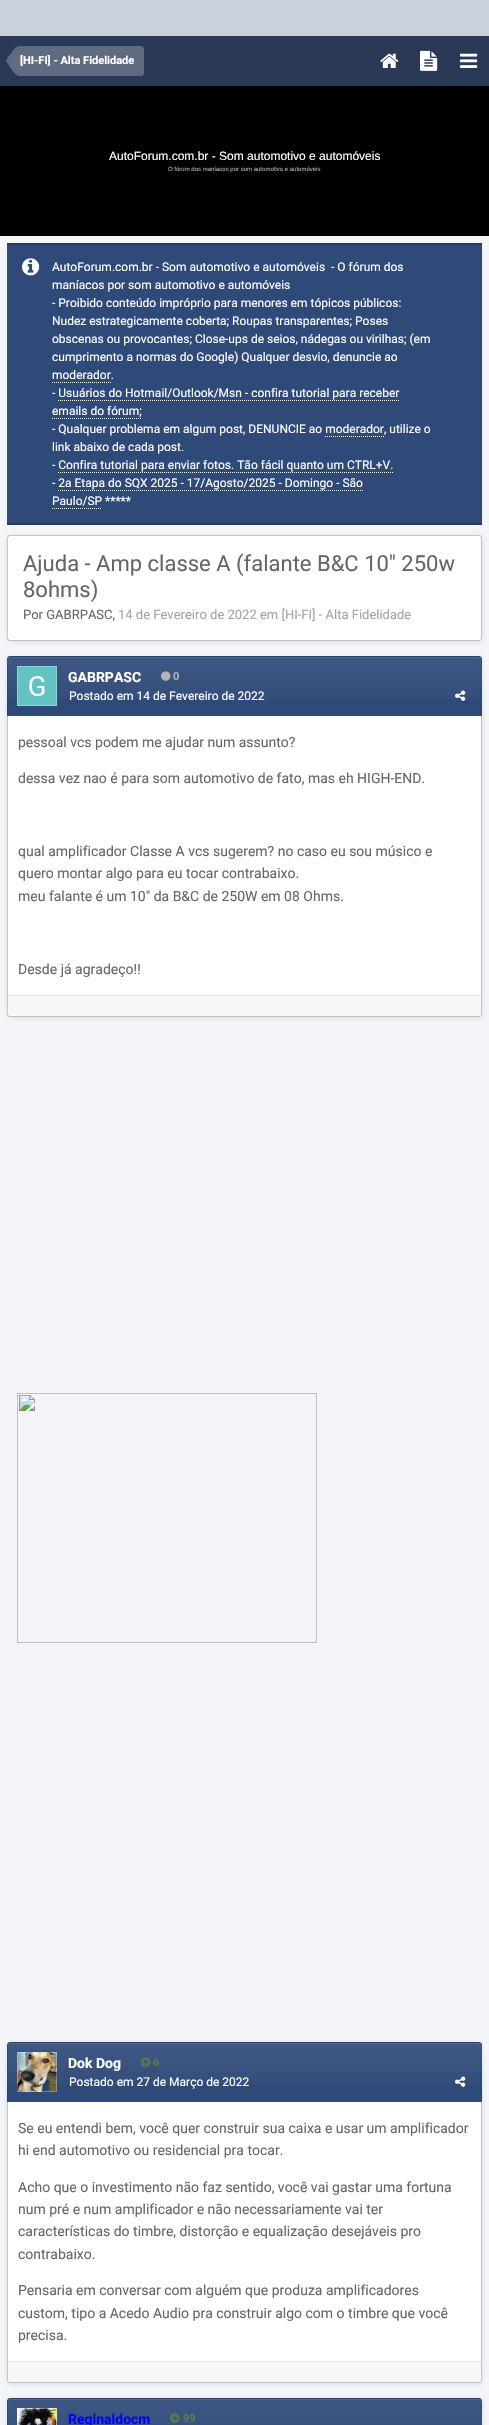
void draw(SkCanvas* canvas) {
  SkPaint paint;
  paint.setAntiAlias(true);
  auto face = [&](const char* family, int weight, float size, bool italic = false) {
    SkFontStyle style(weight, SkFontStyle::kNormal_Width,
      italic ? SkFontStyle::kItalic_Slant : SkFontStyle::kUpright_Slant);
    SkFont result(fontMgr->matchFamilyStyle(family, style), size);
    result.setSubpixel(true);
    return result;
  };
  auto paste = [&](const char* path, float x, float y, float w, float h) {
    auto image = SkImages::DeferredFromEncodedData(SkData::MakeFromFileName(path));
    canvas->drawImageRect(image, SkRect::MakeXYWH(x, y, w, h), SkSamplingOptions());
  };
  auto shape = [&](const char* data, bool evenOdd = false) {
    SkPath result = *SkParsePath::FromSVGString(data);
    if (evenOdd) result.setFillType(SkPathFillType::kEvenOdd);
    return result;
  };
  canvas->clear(0xffcbd1dd);
  paint.setColor(0xff2a3956);
  canvas->drawRect(SkRect::MakeXYWH(0, 36, 489, 50), paint);
  paint.setColor(0xff5f6b80);
  canvas->drawPath(shape("M20 46H141C142.5 46 144 47.5 144 49V73C144 74.5 142.5 76 141 76H20Z"), paint);
  canvas->drawPath(shape("M20 61V76C18 76 15.5 74.5 13 71.5L6 61ZM20 61H6C6 60 14.5 48.5 15 48C16.5 47 18 46 20 46Z"), paint);
  paste("img/1.png", 380, 53, 19, 15);
  paste("img/2.png", 420, 50, 18, 21);
  paste("img/3.png", 460, 53, 18, 15);
  {
    const struct { float x, y, w, h; SkColor color; } items[] = {
      {0, 236, 489, 2189, 0xff2f4979},
      {0, 236, 489, 2189, 0xf0ffffff},
      {0, 86, 489, 150, 0xff000000},
      {7, 245, 475, 278, 0xff2f4979},
      {7, 523, 475, 2, 0xff263a61},
      {7, 243, 475, 2, 0xff263a61},
    };
    for (auto [x, y, w, h, color] : items) {
      paint.setColor(color);
      canvas->drawRect(SkRect::MakeXYWH(x, y, w, h), paint);
    }
  }
  paste("img/4.png", 22, 258, 18, 18);
  paint.setStroke(true);
  paint.setStrokeWidth(1);
  paint.setColor(0xffffffff);
  paint.setPathEffect(SkDashPathEffect::Make({{1, 1}}, 0));
  canvas->drawPath(shape("M52 382.5H111"), paint);
  paint.setPathEffect(nullptr);
  paint.setPathEffect(SkDashPathEffect::Make({{1, 1}}, 0));
  canvas->drawPath(shape("M58 400.5H399"), paint);
  paint.setPathEffect(nullptr);
  paint.setPathEffect(SkDashPathEffect::Make({{1, 1}}, 0));
  canvas->drawPath(shape("M52 418.5H142"), paint);
  paint.setPathEffect(nullptr);
  paint.setPathEffect(SkDashPathEffect::Make({{1, 1}}, 0));
  canvas->drawPath(shape("M325 436.5H384"), paint);
  paint.setPathEffect(nullptr);
  paint.setPathEffect(SkDashPathEffect::Make({{1, 1}}, 0));
  canvas->drawPath(shape("M58 472.5H393"), paint);
  paint.setPathEffect(nullptr);
  paint.setPathEffect(SkDashPathEffect::Make({{1, 1}}, 0));
  canvas->drawPath(shape("M58 490.5H363"), paint);
  paint.setPathEffect(nullptr);
  paint.setPathEffect(SkDashPathEffect::Make({{1, 1}}, 0));
  canvas->drawPath(shape("M52 508.5H102"), paint);
  paint.setPathEffect(nullptr);
  paint.setStroke(false);
  paint.setColor(0x1a000000);
  paint.setMaskFilter(SkMaskFilter::MakeBlur(kNormal_SkBlurStyle, 2));
  canvas->drawRoundRect(SkRect::MakeXYWH(7, 536, 475, 106), 3, 3, paint);
  paint.setMaskFilter(nullptr);
  paint.setColor(0xffffffff);
  canvas->drawRoundRect(SkRect::MakeXYWH(8, 536, 473, 104), 2, 2, paint);
  paint.setStroke(true);
  paint.setColor(0x26000000);
  canvas->drawRoundRect(SkRect::MakeXYWH(7.5f, 535.5f, 474, 105), 2.5f, 2.5f, paint);
  paint.setStroke(false);
  paint.setColor(0x1a000000);
  paint.setMaskFilter(SkMaskFilter::MakeBlur(kNormal_SkBlurStyle, 2));
  canvas->drawRoundRect(SkRect::MakeXYWH(7, 657, 475, 361), 3, 3, paint);
  paint.setMaskFilter(nullptr);
  paint.setColor(0xffffffff);
  canvas->drawRoundRect(SkRect::MakeXYWH(8, 657, 473, 359), 2, 2, paint);
  paint.setStroke(true);
  paint.setColor(0x26000000);
  canvas->drawRoundRect(SkRect::MakeXYWH(7.5f, 656.5f, 474, 360), 2.5f, 2.5f, paint);
  paint.setStroke(false);
  paint.setColor(0xff2f4979);
  canvas->drawPath(shape("M10 656H479C480.5 656 482 657.5 482 659V716H7V659C7 657.5 8.5 656 10 656Z"), paint);
  {
    const SkColor colors[] = {0x14ffffff, 0x00ffffff};
    const float stops[] = {0, 1};
    const SkPoint ends[] = {{245, 657}, {245, 715}};
    paint.setShader(SkGradientShader::MakeLinear(ends, colors, stops, 2, SkTileMode::kClamp));
    paint.setAlpha(255);
  }
  canvas->drawRect(SkRect::MakeXYWH(7, 657, 475, 42), paint);
  {
    const SkColor colors[] = {0xff405884, 0xff2f4979};
    const float stops[] = {0, 1};
    const SkPoint ends[] = {{245, 715}, {245, 773}};
    paint.setShader(SkGradientShader::MakeLinear(ends, colors, stops, 2, SkTileMode::kClamp));
    paint.setAlpha(255);
  }
  canvas->drawRect(SkRect::MakeXYWH(7, 715, 475, 1), paint);
  paint.setShader(nullptr);
  paint.setColor(0xff526890);
  canvas->drawPath(shape("M10 658H479C480 658 481 659 481 660V658L479 657H10C8 657 8 659 8 660C8 659 9 658 10 658Z"), paint);
  paint.setStroke(true);
  paint.setColor(0x1a000000);
  canvas->drawPath(shape("M10 656.5H479C480.5 656.5 481.5 657.5 481.5 659V715.5H7.5V659C7.5 657.5 8.5 656.5 10 656.5Z"), paint);
  paste("img/5.png", 18, 667, 38, 38);
  paint.setColor(0xff91d4d6);
  canvas->drawRect(SkRect::MakeXYWH(17.5f, 666.5f, 39, 39), paint);
  paste("img/6.png", 161, 671, 10, 10);
  paste("img/7.png", 455, 690, 11, 11);
  paint.setStroke(false);
  paint.setColor(0xfff8f8f8);
  canvas->drawPath(shape("M8 995H481V1013C481 1014.5 479.5 1016 478 1016H11C9.5 1016 8 1014.5 8 1013Z"), paint);
  paint.setColor(0xffe5e5e5);
  canvas->drawRect(SkRect::MakeXYWH(8, 995, 473, 1), paint);
  paste("img/8.png", 17, 1393, 300, 250);
  paint.setColor(0x1a000000);
  paint.setMaskFilter(SkMaskFilter::MakeBlur(kNormal_SkBlurStyle, 2));
  canvas->drawRoundRect(SkRect::MakeXYWH(7, 2043, 475, 341), 3, 3, paint);
  paint.setMaskFilter(nullptr);
  paint.setColor(0xffffffff);
  canvas->drawRoundRect(SkRect::MakeXYWH(8, 2043, 473, 339), 2, 2, paint);
  paint.setStroke(true);
  paint.setColor(0x26000000);
  canvas->drawRoundRect(SkRect::MakeXYWH(7.5f, 2042.5f, 474, 340), 2.5f, 2.5f, paint);
  paint.setStroke(false);
  paint.setColor(0xff2f4979);
  canvas->drawPath(shape("M10 2042H479C480.5 2042 482 2043.5 482 2045V2102H7V2045C7 2043.5 8.5 2042 10 2042Z"), paint);
  {
    const SkColor colors[] = {0x14ffffff, 0x00ffffff};
    const float stops[] = {0, 1};
    const SkPoint ends[] = {{245, 2043}, {245, 2101}};
    paint.setShader(SkGradientShader::MakeLinear(ends, colors, stops, 2, SkTileMode::kClamp));
    paint.setAlpha(255);
  }
  canvas->drawRect(SkRect::MakeXYWH(7, 2043, 475, 42), paint);
  {
    const SkColor colors[] = {0xff405884, 0xff2f4979};
    const float stops[] = {0, 1};
    const SkPoint ends[] = {{245, 2101}, {245, 2159}};
    paint.setShader(SkGradientShader::MakeLinear(ends, colors, stops, 2, SkTileMode::kClamp));
    paint.setAlpha(255);
  }
  canvas->drawRect(SkRect::MakeXYWH(7, 2101, 475, 1), paint);
  paint.setShader(nullptr);
  paint.setColor(0xff526890);
  canvas->drawPath(shape("M10 2044H479C480 2044 481 2045 481 2046V2044L479 2043H10C8 2043 8 2045 8 2046C8 2045 9 2044 10 2044Z"), paint);
  paint.setStroke(true);
  paint.setColor(0x1a000000);
  canvas->drawPath(shape("M10 2042.5H479C480.5 2042.5 481.5 2043.5 481.5 2045V2101.5H7.5V2045C7.5 2043.5 8.5 2042.5 10 2042.5Z"), paint);
  paste("img/9.png", 17, 2052, 40, 40);
  paint.setColor(0x4dffffff);
  canvas->drawRect(SkRect::MakeXYWH(17.5f, 2052.5f, 39, 39), paint);
  paste("img/10.png", 141, 2057, 10, 10);
  paste("img/7.png", 455, 2076, 11, 11);
  paint.setStroke(false);
  paint.setColor(0xfff8f8f8);
  canvas->drawPath(shape("M8 2361H481V2379C481 2380.5 479.5 2382 478 2382H11C9.5 2382 8 2380.5 8 2379Z"), paint);
  paint.setColor(0xffe5e5e5);
  canvas->drawRect(SkRect::MakeXYWH(8, 2361, 473, 1), paint);
  paint.setColor(0x1a000000);
  paint.setMaskFilter(SkMaskFilter::MakeBlur(kNormal_SkBlurStyle, 2));
  canvas->drawRoundRect(SkRect::MakeXYWH(7, 2399, 475, 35), 3, 3, paint);
  paint.setMaskFilter(nullptr);
  paint.setStroke(true);
  paint.setColor(0x26000000);
  canvas->drawRoundRect(SkRect::MakeXYWH(7.5f, 2398.5f, 474, 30), 2.5f, 2.5f, paint);
  paint.setStroke(false);
  paint.setColor(0xff2f4979);
  canvas->drawPath(shape("M10 2398H479C480.5 2398 482 2399.5 482 2401V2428H7V2401C7 2399.5 8.5 2398 10 2398Z"), paint);
  {
    const SkColor colors[] = {0x14ffffff, 0x00ffffff};
    const float stops[] = {0, 1};
    const SkPoint ends[] = {{245, 2399}, {245, 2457}};
    paint.setShader(SkGradientShader::MakeLinear(ends, colors, stops, 2, SkTileMode::kClamp));
    paint.setAlpha(255);
  }
  canvas->drawRect(SkRect::MakeXYWH(7, 2399, 475, 26), paint);
  paint.setShader(nullptr);
  paint.setColor(0xff526890);
  canvas->drawPath(shape("M10 2400H479C480 2400 481 2401 481 2402V2400L479 2399H10C8 2399 8 2401 8 2402C8 2401 9 2400 10 2400Z"), paint);
  paint.setStroke(true);
  paint.setColor(0x1a000000);
  canvas->drawPath(shape("M10 2398.5H479C480.5 2398.5 481.5 2399.5 481.5 2401V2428.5H7.5V2401C7.5 2399.5 8.5 2398.5 10 2398.5Z"), paint);
  paste("img/11.png", 17, 2408, 40, 17);
  paint.setColor(0x4dffffff);
  canvas->drawRect(SkRect::MakeXYWH(17.5f, 2408.5f, 39, 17), paint);
  paste("img/10.png", 170, 2413, 10, 10);
  auto f0 = face("Roboto", 700, 11);
  paint.setStroke(false);
  paint.setColor(0xffffffff);
  canvas->drawString("[HI-FI] - Alta Fidelidade", 20, 64, f0, paint);
  auto f1 = face("Liberation Sans", 400, 12);
  canvas->drawString("AutoForum.com.br - Som automotivo e automóveis", 109, 160, f1, paint);
  auto f2 = face("Liberation Sans", 400, 6);
  paint.setColor(0xffb3b3b3);
  canvas->drawString("O fórum dos maníacos por som automotivo e automóveis", 168, 171, f2, paint);
  auto f3 = face("Roboto", 400, 12);
  paint.setColor(0xffffffff);
  {
    const struct { const char* s; float x, y; } items[] = {
      {"AutoForum.com.br - Som automotivo e automóveis  - O fórum dos", 52, 271},
      {"maníacos por som automotivo e automóveis", 52, 289},
      {"- Proibido conteúdo impróprio para menores em tópicos públicos:", 52, 307},
      {"Nudez estrategicamente coberta; Roupas transparentes; Poses", 52, 325},
      {"obscenas ou provocantes; Close-ups de seios, nádegas ou virilhas; (em", 52, 343},
      {"cumprimento a normas do Google) Qualquer desvio, denuncie ao", 52, 361},
      {"moderador.", 52, 379},
      {"- Usuários do Hotmail/Outlook/Msn - confira tutorial para receber", 52, 397},
      {"emails do fórum;", 52, 415},
      {"- Qualquer problema em algum post, DENUNCIE ao moderador, utilize o", 52, 433},
      {"link abaixo de cada post.", 52, 451},
      {"- Confira tutorial para enviar fotos. Tão fácil quanto um CTRL+V.", 52, 469},
      {"- 2a Etapa do SQX 2025 - 17/Agosto/2025 - Domingo - São", 52, 487},
      {"Paulo/SP *****", 52, 505},
    };
    for (auto [s, x, y] : items) {
      canvas->drawString(s, x, y, f3, paint);
    }
  }
  auto f4 = face("Roboto", 400, 22);
  paint.setColor(0xff666666);
  canvas->drawString("Ajuda - Amp classe A (falante B&C 10\" 250w", 23, 571, f4, paint);
  canvas->drawString("8ohms)", 23, 597, f4, paint);
  auto f5 = face("Roboto", 400, 13);
  canvas->drawString("Por GABRPASC,", 23, 619, f5, paint);
  paint.setColor(0xffa4a4a4);
  canvas->drawString("14 de Fevereiro de 2022 em [HI-FI] - Alta Fidelidade", 118, 619, f5, paint);
  auto f6 = face("Roboto", 700, 14);
  paint.setColor(0xffffffff);
  canvas->drawString("GABRPASC", 68, 682, f6, paint);
  paint.setColor(0xffb3b3b3);
  canvas->drawString("0", 173, 680, f0, paint);
  paint.setColor(0xffffffff);
  canvas->drawString("Postado em 14 de Fevereiro de 2022", 69, 700, f3, paint);
  auto f7 = face("Roboto", 400, 14);
  paint.setColor(0xff666666);
  {
    const struct { const char* s; float x, y; } items[] = {
      {"pessoal vcs podem me ajudar num assunto?", 18, 747},
      {"dessa vez nao é para som automotivo de fato, mas eh HIGH-END.", 18, 783},
      {"qual amplificador Classe A vcs sugerem? no caso eu sou músico e", 18, 856},
      {"quero montar algo para eu tocar contrabaixo.", 18, 878},
      {"meu falante é um 10\" da B&C de 250W em 08 Ohms.", 18, 901},
      {"Desde já agradeço!!", 18, 974},
    };
    for (auto [s, x, y] : items) {
      canvas->drawString(s, x, y, f7, paint);
    }
  }
  paint.setColor(0xffffffff);
  canvas->drawString("Dok Dog", 68, 2068, f6, paint);
  paint.setColor(0xff5f7a47);
  canvas->drawString("6", 153, 2066, f0, paint);
  paint.setColor(0xffffffff);
  canvas->drawString("Postado em 27 de Março de 2022", 69, 2086, f3, paint);
  paint.setColor(0xff666666);
  {
    const struct { const char* s; float x, y; } items[] = {
      {"Se eu entendi bem, você quer construir sua caixa e usar um amplificador", 18, 2133},
      {"hi end automotivo ou residencial pra tocar.", 18, 2155},
      {"Acho que o investimento não faz sentido, você vai gastar uma fortuna", 18, 2192},
      {"num pré e num amplificador e não necessariamente vai ter", 18, 2214},
      {"características do timbre, distorção e equalização desejáveis pro", 18, 2236},
      {"contrabaixo.", 18, 2259},
      {"Pensaria em conversar com alguém que produza amplificadores", 18, 2295},
      {"custom, tipo a Acedo Audio pra construir algo com o timbre que você", 18, 2318},
      {"precisa.", 18, 2340},
    };
    for (auto [s, x, y] : items) {
      canvas->drawString(s, x, y, f7, paint);
    }
  }
  paint.setColor(0xff0000ff);
  canvas->drawString("Reginaldocm", 68, 2424, f6, paint);
  paint.setColor(0xff5f7a47);
  canvas->drawString("99", 183, 2422, f0, paint);
}
